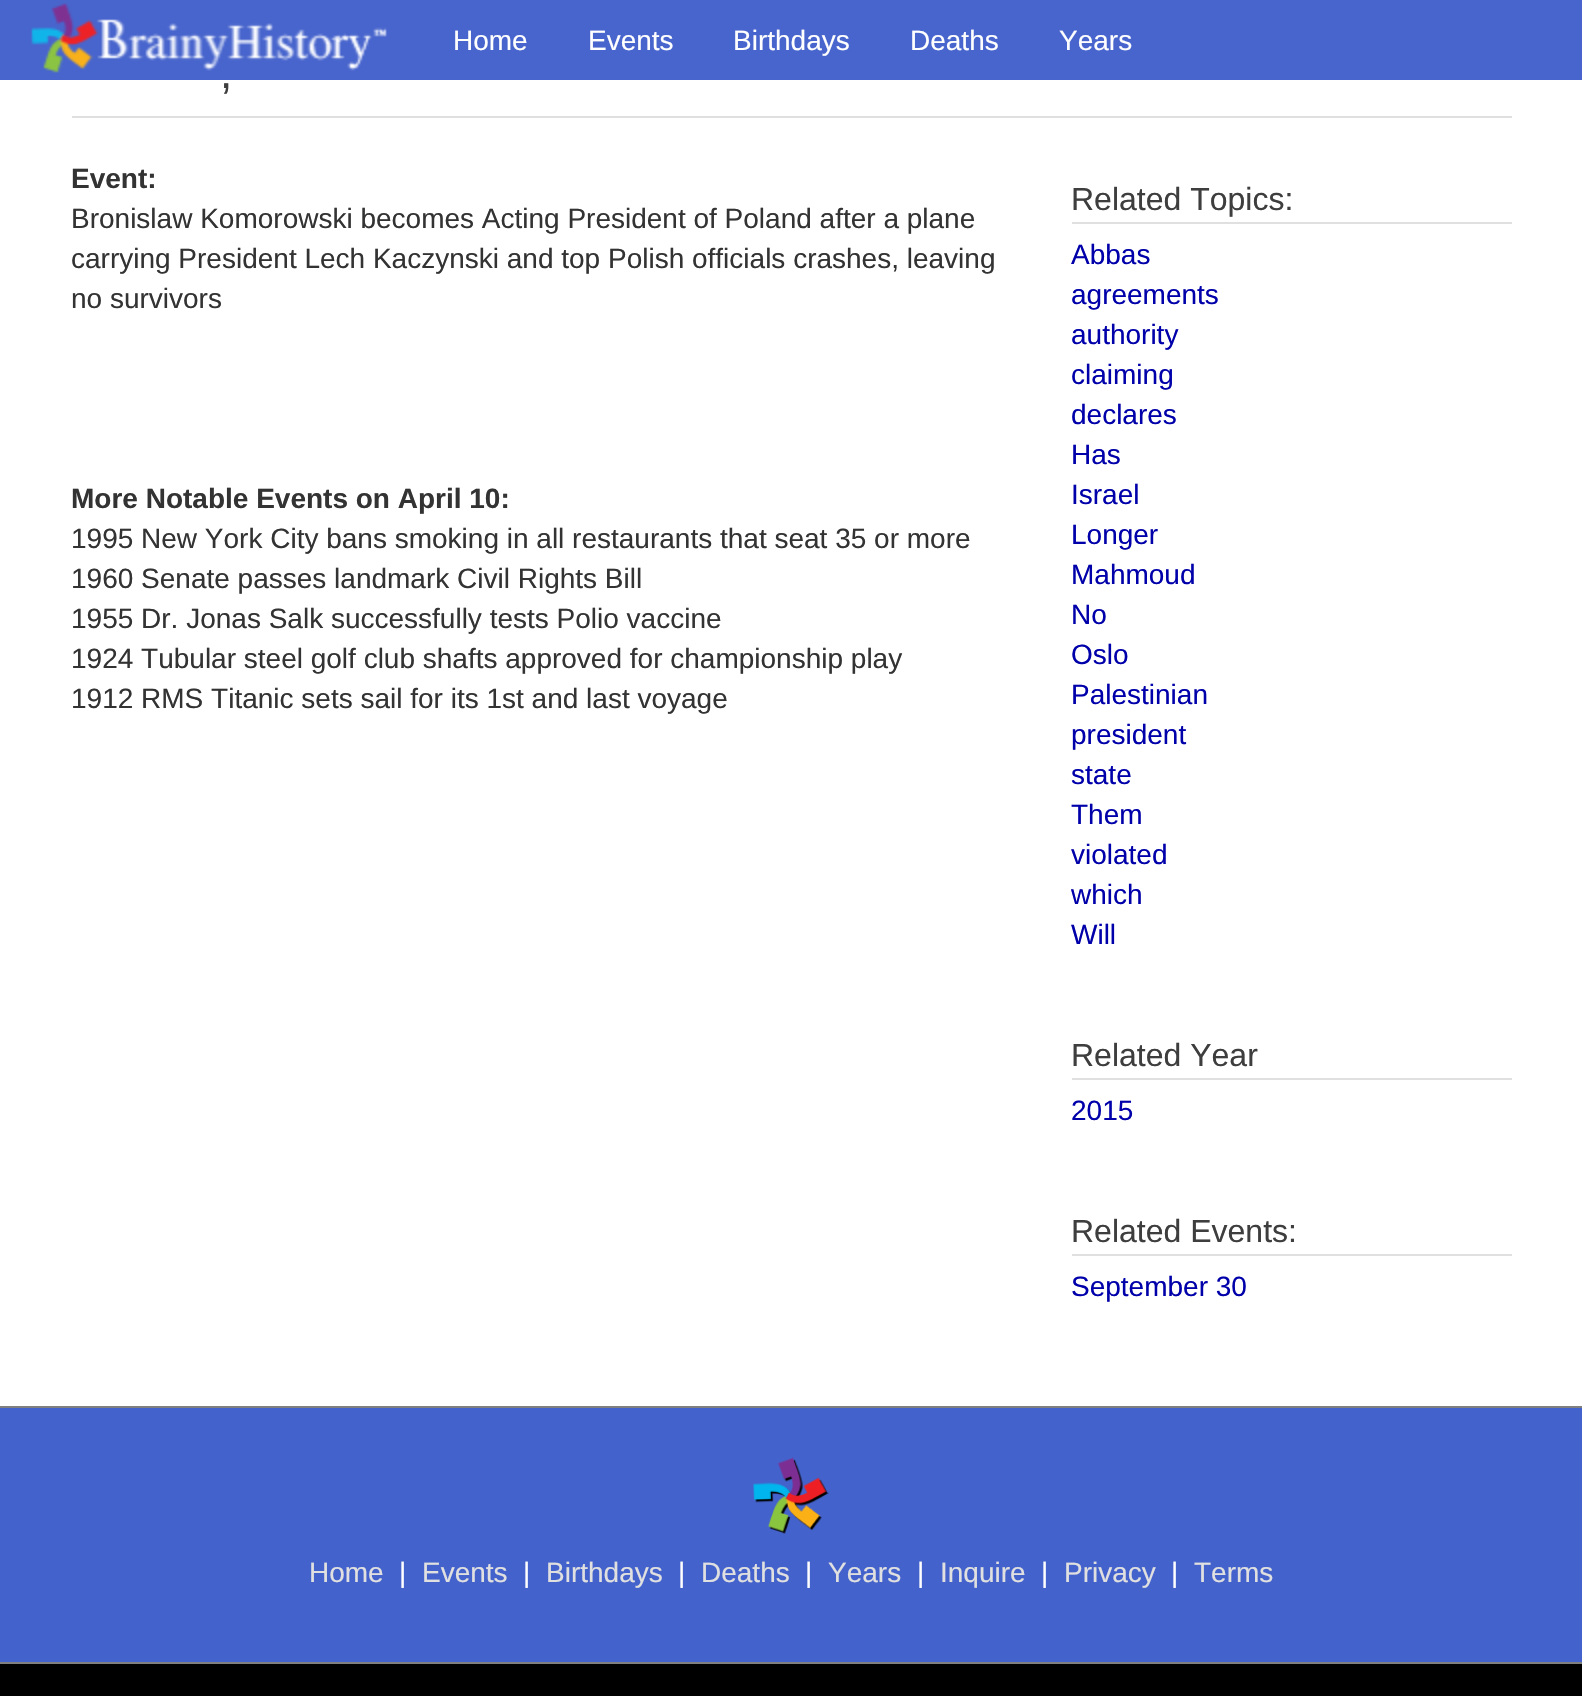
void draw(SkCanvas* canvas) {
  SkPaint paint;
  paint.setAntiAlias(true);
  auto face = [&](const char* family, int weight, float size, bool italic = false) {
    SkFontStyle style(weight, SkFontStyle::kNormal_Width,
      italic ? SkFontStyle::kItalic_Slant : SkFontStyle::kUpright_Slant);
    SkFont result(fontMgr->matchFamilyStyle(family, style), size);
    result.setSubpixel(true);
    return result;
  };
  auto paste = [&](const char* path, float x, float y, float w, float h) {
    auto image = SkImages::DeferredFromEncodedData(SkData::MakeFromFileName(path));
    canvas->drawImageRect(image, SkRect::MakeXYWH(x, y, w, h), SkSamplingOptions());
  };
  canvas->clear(0xffffffff);
  paint.setColor(0xff4865cd);
  canvas->drawRect(SkRect::MakeXYWH(0, 0, 1582, 80), paint);
  paste("img/1.png", 31, 3, 356, 70);
  {
    const struct { float x, y, w, h; SkColor color; } items[] = {
      {72, 116, 1440, 2, 0xffe0e0e0},
      {1072, 222, 440, 2, 0xffe0e0e0},
      {1072, 1078, 440, 2, 0xffe0e0e0},
      {1072, 1254, 440, 2, 0xffe0e0e0},
      {0, 1408, 1582, 254, 0xff4462cb},
      {0, 1406, 1582, 2, 0xff7f7f7f},
      {0, 1662, 1582, 2, 0xff7f7f7f},
    };
    for (auto [x, y, w, h, color] : items) {
      paint.setColor(color);
      canvas->drawRect(SkRect::MakeXYWH(x, y, w, h), paint);
    }
  }
  paste("img/2.png", 753, 1457, 76, 77);
  paint.setColor(0xff000000);
  canvas->drawRect(SkRect::MakeXYWH(0, 1664, 1582, 32), paint);
  auto f0 = face("Liberation Sans", 400, 28);
  paint.setColor(0xffffffff);
  {
    const struct { const char* s; float x, y; } items[] = {
      {"Home", 453, 50},
      {"Events", 588, 50},
      {"Birthdays", 733, 50},
      {"Deaths", 910, 50},
      {"Years", 1059, 50},
    };
    for (auto [s, x, y] : items) {
      canvas->drawString(s, x, y, f0, paint);
    }
  }
  auto f1 = face("Liberation Sans", 400, 44);
  paint.setColor(0xff3e3e3e);
  canvas->drawString(",", 220, 88, f1, paint);
  auto f2 = face("Liberation Sans", 700, 28);
  paint.setColor(0xff333333);
  canvas->drawString("Event:", 71, 188, f2, paint);
  {
    const struct { const char* s; float x, y; } items[] = {
      {"Bronislaw Komorowski becomes Acting President of Poland after a plane", 71, 228},
      {"carrying President Lech Kaczynski and top Polish officials crashes, leaving", 71, 268},
      {"no survivors", 71, 308},
    };
    for (auto [s, x, y] : items) {
      canvas->drawString(s, x, y, f0, paint);
    }
  }
  canvas->drawString("More Notable Events on April 10:", 71, 508, f2, paint);
  {
    const struct { const char* s; float x, y; } items[] = {
      {"1995 New York City bans smoking in all restaurants that seat 35 or more", 71, 548},
      {"1960 Senate passes landmark Civil Rights Bill", 71, 588},
      {"1955 Dr. Jonas Salk successfully tests Polio vaccine", 71, 628},
      {"1924 Tubular steel golf club shafts approved for championship play", 71, 668},
      {"1912 RMS Titanic sets sail for its 1st and last voyage", 71, 708},
    };
    for (auto [s, x, y] : items) {
      canvas->drawString(s, x, y, f0, paint);
    }
  }
  auto f3 = face("Liberation Sans", 400, 32);
  paint.setColor(0xff3e3e3e);
  canvas->drawString("Related Topics:", 1071, 210, f3, paint);
  paint.setColor(0xff0000aa);
  {
    const struct { const char* s; float x, y; } items[] = {
      {"Abbas", 1071, 264},
      {"agreements", 1071, 304},
      {"authority", 1071, 344},
      {"claiming", 1071, 384},
      {"declares", 1071, 424},
      {"Has", 1071, 464},
      {"Israel", 1071, 504},
      {"Longer", 1071, 544},
      {"Mahmoud", 1071, 584},
      {"No", 1071, 624},
      {"Oslo", 1071, 664},
      {"Palestinian", 1071, 704},
      {"president", 1071, 744},
      {"state", 1071, 784},
      {"Them", 1071, 824},
      {"violated", 1071, 864},
      {"which", 1071, 904},
      {"Will", 1071, 944},
    };
    for (auto [s, x, y] : items) {
      canvas->drawString(s, x, y, f0, paint);
    }
  }
  paint.setColor(0xff3e3e3e);
  canvas->drawString("Related Year", 1071, 1066, f3, paint);
  paint.setColor(0xff0000aa);
  canvas->drawString("2015", 1071, 1120, f0, paint);
  paint.setColor(0xff3e3e3e);
  canvas->drawString("Related Events:", 1071, 1242, f3, paint);
  paint.setColor(0xff0000aa);
  canvas->drawString("September 30", 1071, 1296, f0, paint);
  paint.setColor(0xffe0e0e0);
  canvas->drawString("Home", 309, 1582, f0, paint);
  paint.setColor(0xffffffff);
  canvas->drawString("|", 399, 1582, f0, paint);
  paint.setColor(0xffe0e0e0);
  canvas->drawString("Events", 422, 1582, f0, paint);
  paint.setColor(0xffffffff);
  canvas->drawString("|", 523, 1582, f0, paint);
  paint.setColor(0xffe0e0e0);
  canvas->drawString("Birthdays", 546, 1582, f0, paint);
  paint.setColor(0xffffffff);
  canvas->drawString("|", 678, 1582, f0, paint);
  paint.setColor(0xffe0e0e0);
  canvas->drawString("Deaths", 701, 1582, f0, paint);
  paint.setColor(0xffffffff);
  canvas->drawString("|", 805, 1582, f0, paint);
  paint.setColor(0xffe0e0e0);
  canvas->drawString("Years", 828, 1582, f0, paint);
  paint.setColor(0xffffffff);
  canvas->drawString("|", 917, 1582, f0, paint);
  paint.setColor(0xffe0e0e0);
  canvas->drawString("Inquire", 940, 1582, f0, paint);
  paint.setColor(0xffffffff);
  canvas->drawString("|", 1041, 1582, f0, paint);
  paint.setColor(0xffe0e0e0);
  canvas->drawString("Privacy", 1064, 1582, f0, paint);
  paint.setColor(0xffffffff);
  canvas->drawString("|", 1171, 1582, f0, paint);
  paint.setColor(0xffe0e0e0);
  canvas->drawString("Terms", 1194, 1582, f0, paint);
}
